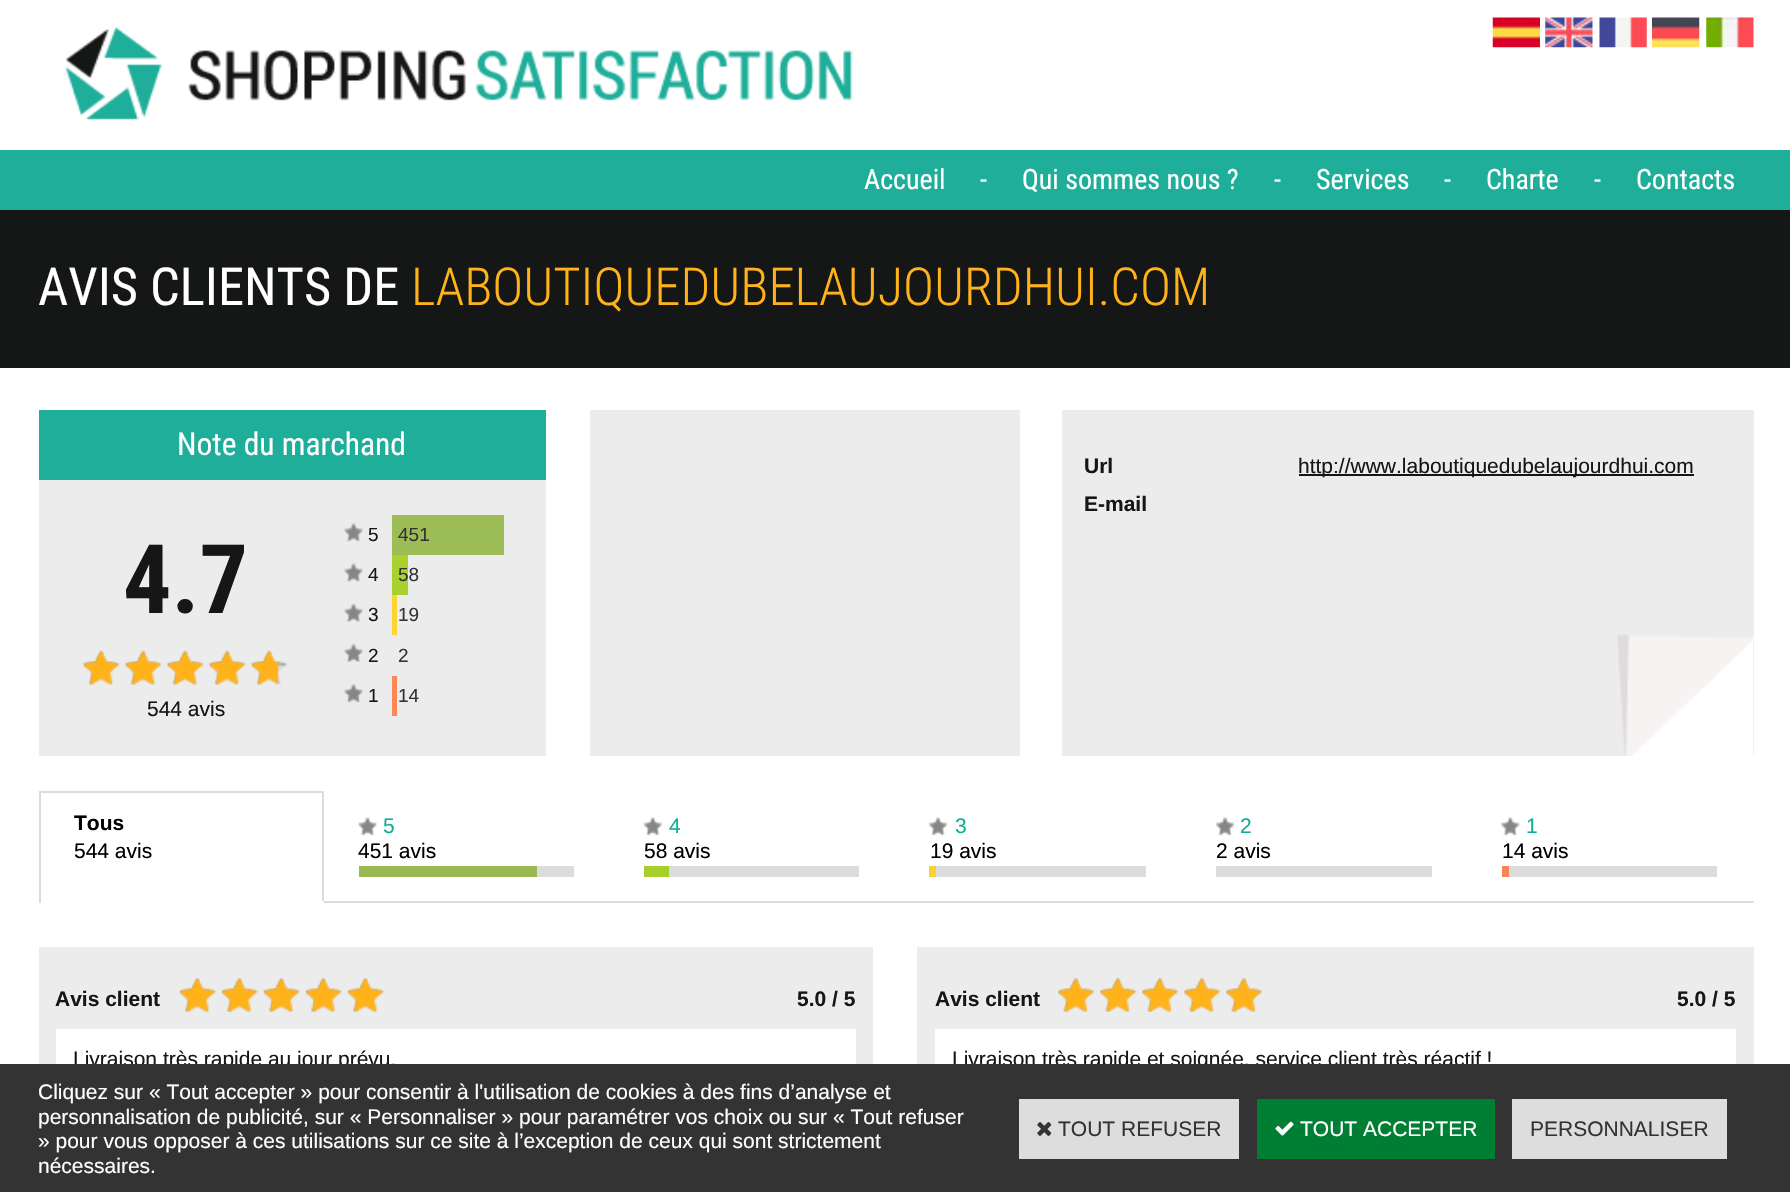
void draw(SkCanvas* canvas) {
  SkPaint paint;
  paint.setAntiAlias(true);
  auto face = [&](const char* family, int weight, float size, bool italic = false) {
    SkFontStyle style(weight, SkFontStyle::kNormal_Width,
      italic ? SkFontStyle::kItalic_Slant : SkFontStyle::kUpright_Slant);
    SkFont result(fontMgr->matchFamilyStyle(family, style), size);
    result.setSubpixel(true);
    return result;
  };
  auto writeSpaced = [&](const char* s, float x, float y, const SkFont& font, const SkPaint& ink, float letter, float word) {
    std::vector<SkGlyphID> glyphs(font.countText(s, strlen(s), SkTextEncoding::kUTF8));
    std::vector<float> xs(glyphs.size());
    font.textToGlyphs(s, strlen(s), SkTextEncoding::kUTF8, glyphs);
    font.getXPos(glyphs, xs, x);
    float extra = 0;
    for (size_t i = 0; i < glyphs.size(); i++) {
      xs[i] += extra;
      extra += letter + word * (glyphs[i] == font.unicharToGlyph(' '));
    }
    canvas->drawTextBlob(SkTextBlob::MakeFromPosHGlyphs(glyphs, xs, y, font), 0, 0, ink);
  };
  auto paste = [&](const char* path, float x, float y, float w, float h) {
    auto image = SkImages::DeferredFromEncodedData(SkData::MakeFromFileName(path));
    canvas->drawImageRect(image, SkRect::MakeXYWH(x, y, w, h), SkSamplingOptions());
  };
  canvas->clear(0xffffffff);
  paint.setColor(0xff1eae99);
  canvas->drawRect(SkRect::MakeXYWH(0, 150, 1790, 60), paint);
  paste("img/1.png", 65, 27, 788, 93);
  paste("img/2.png", 1492, 17, 48, 31);
  paste("img/3.png", 1545, 17, 48, 31);
  paste("img/4.png", 1599, 17, 48, 31);
  paste("img/5.png", 1652, 17, 48, 31);
  paste("img/6.png", 1706, 17, 48, 31);
  {
    const struct { float x, y, w, h; SkColor color; } items[] = {
      {0, 210, 1790, 158, 0xff151616},
      {39, 480, 507, 276, 0xffececec},
      {39, 410, 507, 70, 0xff1eae99},
    };
    for (auto [x, y, w, h, color] : items) {
      paint.setColor(color);
      canvas->drawRect(SkRect::MakeXYWH(x, y, w, h), paint);
    }
  }
  paste("img/7.png", 83, 650, 205, 35);
  paste("img/8.png", 83, 650, 196, 35);
  paste("img/9.png", 344, 523, 19, 19);
  paint.setColor(0xff9cbd56);
  canvas->drawRect(SkRect::MakeXYWH(392, 515, 112, 40), paint);
  paste("img/10.png", 344, 563, 19, 19);
  paint.setColor(0xffaad22f);
  canvas->drawRect(SkRect::MakeXYWH(392, 555, 16, 40), paint);
  paste("img/11.png", 344, 603, 19, 19);
  paint.setColor(0xfffbd531);
  canvas->drawRect(SkRect::MakeXYWH(392, 595, 5, 40), paint);
  paste("img/12.png", 344, 643, 19, 19);
  paste("img/9.png", 344, 684, 19, 19);
  {
    const struct { float x, y, w, h; SkColor color; } items[] = {
      {392, 676, 5, 40, 0xfffb8856},
      {590, 410, 430, 346, 0xffececec},
      {1062, 410, 692, 346, 0xffececec},
    };
    for (auto [x, y, w, h, color] : items) {
      paint.setColor(color);
      canvas->drawRect(SkRect::MakeXYWH(x, y, w, h), paint);
    }
  }
  paste("img/13.png", 1617, 634, 137, 122);
  {
    const struct { float x, y, w, h; SkColor color; } items[] = {
      {1299, 474, 395, 2, 0xff151616},
      {39, 791, 285, 2, 0xffdcdcdc},
      {322, 791, 2, 112, 0xffdcdcdc},
      {322, 901, 2, 2, 0xffffffff},
      {39, 791, 2, 112, 0xffdcdcdc},
    };
    for (auto [x, y, w, h, color] : items) {
      paint.setColor(color);
      canvas->drawRect(SkRect::MakeXYWH(x, y, w, h), paint);
    }
  }
  paste("img/14.png", 358, 817, 19, 19);
  canvas->drawRect(SkRect::MakeXYWH(537, 866, 37, 11), paint);
  paint.setColor(0xff99ba53);
  canvas->drawRect(SkRect::MakeXYWH(359, 866, 178, 11), paint);
  paste("img/15.png", 643, 817, 19, 19);
  paint.setColor(0xffdcdcdc);
  canvas->drawRect(SkRect::MakeXYWH(669, 866, 190, 11), paint);
  paint.setColor(0xffa6cf2c);
  canvas->drawRect(SkRect::MakeXYWH(644, 866, 25, 11), paint);
  paste("img/16.png", 928, 817, 20, 19);
  paint.setColor(0xffdcdcdc);
  canvas->drawRect(SkRect::MakeXYWH(936, 866, 210, 11), paint);
  paint.setColor(0xfff8d22e);
  canvas->drawRect(SkRect::MakeXYWH(929, 866, 7, 11), paint);
  paste("img/16.png", 1215, 817, 20, 19);
  paint.setColor(0xffdcdcdc);
  canvas->drawRect(SkRect::MakeXYWH(1216, 866, 216, 11), paint);
  paste("img/17.png", 1501, 817, 19, 19);
  {
    const struct { float x, y, w, h; SkColor color; } items[] = {
      {1509, 866, 208, 11, 0xffdcdcdc},
      {1502, 866, 7, 11, 0xfff88553},
      {324, 901, 1430, 2, 0xffdcdcdc},
      {39, 947, 834, 117, 0xffececec},
    };
    for (auto [x, y, w, h, color] : items) {
      paint.setColor(color);
      canvas->drawRect(SkRect::MakeXYWH(x, y, w, h), paint);
    }
  }
  paste("img/18.png", 179, 978, 205, 34);
  paste("img/19.png", 179, 977, 205, 35);
  paint.setColor(0xffffffff);
  canvas->drawRect(SkRect::MakeXYWH(56, 1029, 800, 35), paint);
  paint.setColor(0xffececec);
  canvas->drawRect(SkRect::MakeXYWH(917, 947, 837, 117), paint);
  paste("img/20.png", 1058, 978, 204, 34);
  paste("img/21.png", 1058, 977, 205, 35);
  paint.setColor(0xffffffff);
  canvas->drawRect(SkRect::MakeXYWH(935, 1029, 801, 35), paint);
  auto f0 = face("Roboto Condensed", 400, 28);
  {
    const struct { const char* s; float x, y; } items[] = {
      {"Accueil", 864, 189},
      {"-", 980, 189},
      {"Qui sommes nous ?", 1022, 189},
      {"-", 1274, 189},
      {"Services", 1316, 189},
      {"-", 1444, 189},
      {"Charte", 1486, 189},
      {"-", 1594, 189},
      {"Contacts", 1636, 189},
    };
    for (auto [s, x, y] : items) {
      canvas->drawString(s, x, y, f0, paint);
    }
  }
  auto f1 = face("Roboto Condensed", 400, 52.5f);
  canvas->drawString("AVIS CLIENTS DE", 38, 305, f1, paint);
  auto f2 = face("Roboto Condensed", 300, 52.5f);
  paint.setColor(0xffffb219);
  canvas->drawString("LABOUTIQUEDUBELAUJOURDHUI.COM", 411, 305, f2, paint);
  auto f3 = face("Roboto Condensed", 400, 31.5f);
  paint.setColor(0xffffffff);
  canvas->drawString("Note du marchand", 177, 455, f3, paint);
  auto f4 = face("Roboto Condensed", 700, 96);
  paint.setColor(0xff151616);
  canvas->drawString("4.7", 123, 613, f4, paint);
  auto f5 = face("Liberation Sans", 400, 21);
  canvas->drawString("544 avis", 147, 716, f5, paint);
  auto f6 = face("Liberation Sans", 400, 19);
  writeSpaced("5", 368, 541, f6, paint, 2, 0);
  paint.setColor(0xff333333);
  canvas->drawString("451", 398, 541, f6, paint);
  paint.setColor(0xff151616);
  writeSpaced("4", 368, 581, f6, paint, 2, 0);
  paint.setColor(0xff333333);
  canvas->drawString("58", 398, 581, f6, paint);
  paint.setColor(0xff151616);
  writeSpaced("3", 368, 621, f6, paint, 2, 0);
  paint.setColor(0xff333333);
  canvas->drawString("19", 398, 621, f6, paint);
  paint.setColor(0xff151616);
  writeSpaced("2", 368, 662, f6, paint, 2, 0);
  paint.setColor(0xff333333);
  canvas->drawString("2", 398, 662, f6, paint);
  paint.setColor(0xff151616);
  writeSpaced("1", 368, 702, f6, paint, 2, 0);
  paint.setColor(0xff333333);
  canvas->drawString("14", 398, 702, f6, paint);
  auto f7 = face("Liberation Sans", 700, 21);
  paint.setColor(0xff151616);
  canvas->drawString("Url", 1084, 473, f7, paint);
  canvas->drawString("http://www.laboutiquedubelaujourdhui.com", 1298, 473, f5, paint);
  canvas->drawString("E-mail", 1084, 511, f7, paint);
  paint.setColor(0xff000000);
  canvas->drawString("Tous", 74, 830, f7, paint);
  canvas->drawString("544 avis", 74, 858, f5, paint);
  paint.setColor(0xff11ad99);
  canvas->drawString("5", 383, 833, f5, paint);
  paint.setColor(0xff000000);
  canvas->drawString("451 avis", 358, 858, f5, paint);
  paint.setColor(0xff11ad99);
  canvas->drawString("4", 669, 833, f5, paint);
  paint.setColor(0xff000000);
  canvas->drawString("58 avis", 644, 858, f5, paint);
  paint.setColor(0xff11ad99);
  canvas->drawString("3", 955, 833, f5, paint);
  paint.setColor(0xff000000);
  canvas->drawString("19 avis", 930, 858, f5, paint);
  paint.setColor(0xff11ad99);
  canvas->drawString("2", 1240, 833, f5, paint);
  paint.setColor(0xff000000);
  canvas->drawString("2 avis", 1216, 858, f5, paint);
  paint.setColor(0xff11ad99);
  canvas->drawString("1", 1526, 833, f5, paint);
  paint.setColor(0xff000000);
  canvas->drawString("14 avis", 1502, 858, f5, paint);
  paint.setColor(0xff151616);
  canvas->drawString("Avis client", 55, 1006, f7, paint);
  canvas->drawString("5.0 / 5", 797, 1006, f7, paint);
  canvas->drawString("Livraison très rapide au jour prévu.", 73, 1066, f5, paint);
  canvas->drawString("Avis client", 935, 1006, f7, paint);
  canvas->drawString("5.0 / 5", 1677, 1006, f7, paint);
  canvas->drawString("Livraison très rapide et soignée, service client très réactif !", 952, 1066, f5, paint);
  paint.setColor(0xff333333);
  canvas->drawRect(SkRect::MakeXYWH(0, 1064, 1790, 128), paint);
  paint.setColor(0xffffffff);
  {
    const struct { const char* s; float x, y; } items[] = {
      {"Cliquez sur « Tout accepter » pour consentir à l'utilisation de cookies à des fins d’analyse et", 38, 1099},
      {"personnalisation de publicité, sur « Personnaliser » pour paramétrer vos choix ou sur « Tout refuser", 38, 1124},
      {"» pour vous opposer à ces utilisations sur ce site à l’exception de ceux qui sont strictement", 38, 1148},
      {"nécessaires.", 38, 1173},
    };
    for (auto [s, x, y] : items) {
      canvas->drawString(s, x, y, f5, paint);
    }
  }
  paint.setColor(0xffdddddd);
  canvas->drawRect(SkRect::MakeXYWH(1019, 1099, 220, 60), paint);
  paste("img/22.png", 1037, 1122, 15, 14);
  paint.setColor(0xff333333);
  canvas->drawString("TOUT REFUSER", 1058, 1136, f5, paint);
  paint.setColor(0xff007e33);
  canvas->drawRect(SkRect::MakeXYWH(1257, 1099, 238, 60), paint);
  paste("img/23.png", 1275, 1121, 19, 15);
  paint.setColor(0xffffffff);
  canvas->drawString("TOUT ACCEPTER", 1300, 1136, f5, paint);
  paint.setColor(0xffdddddd);
  canvas->drawRect(SkRect::MakeXYWH(1512, 1099, 215, 60), paint);
  paint.setColor(0xff333333);
  canvas->drawString("PERSONNALISER", 1530, 1136, f5, paint);
}
